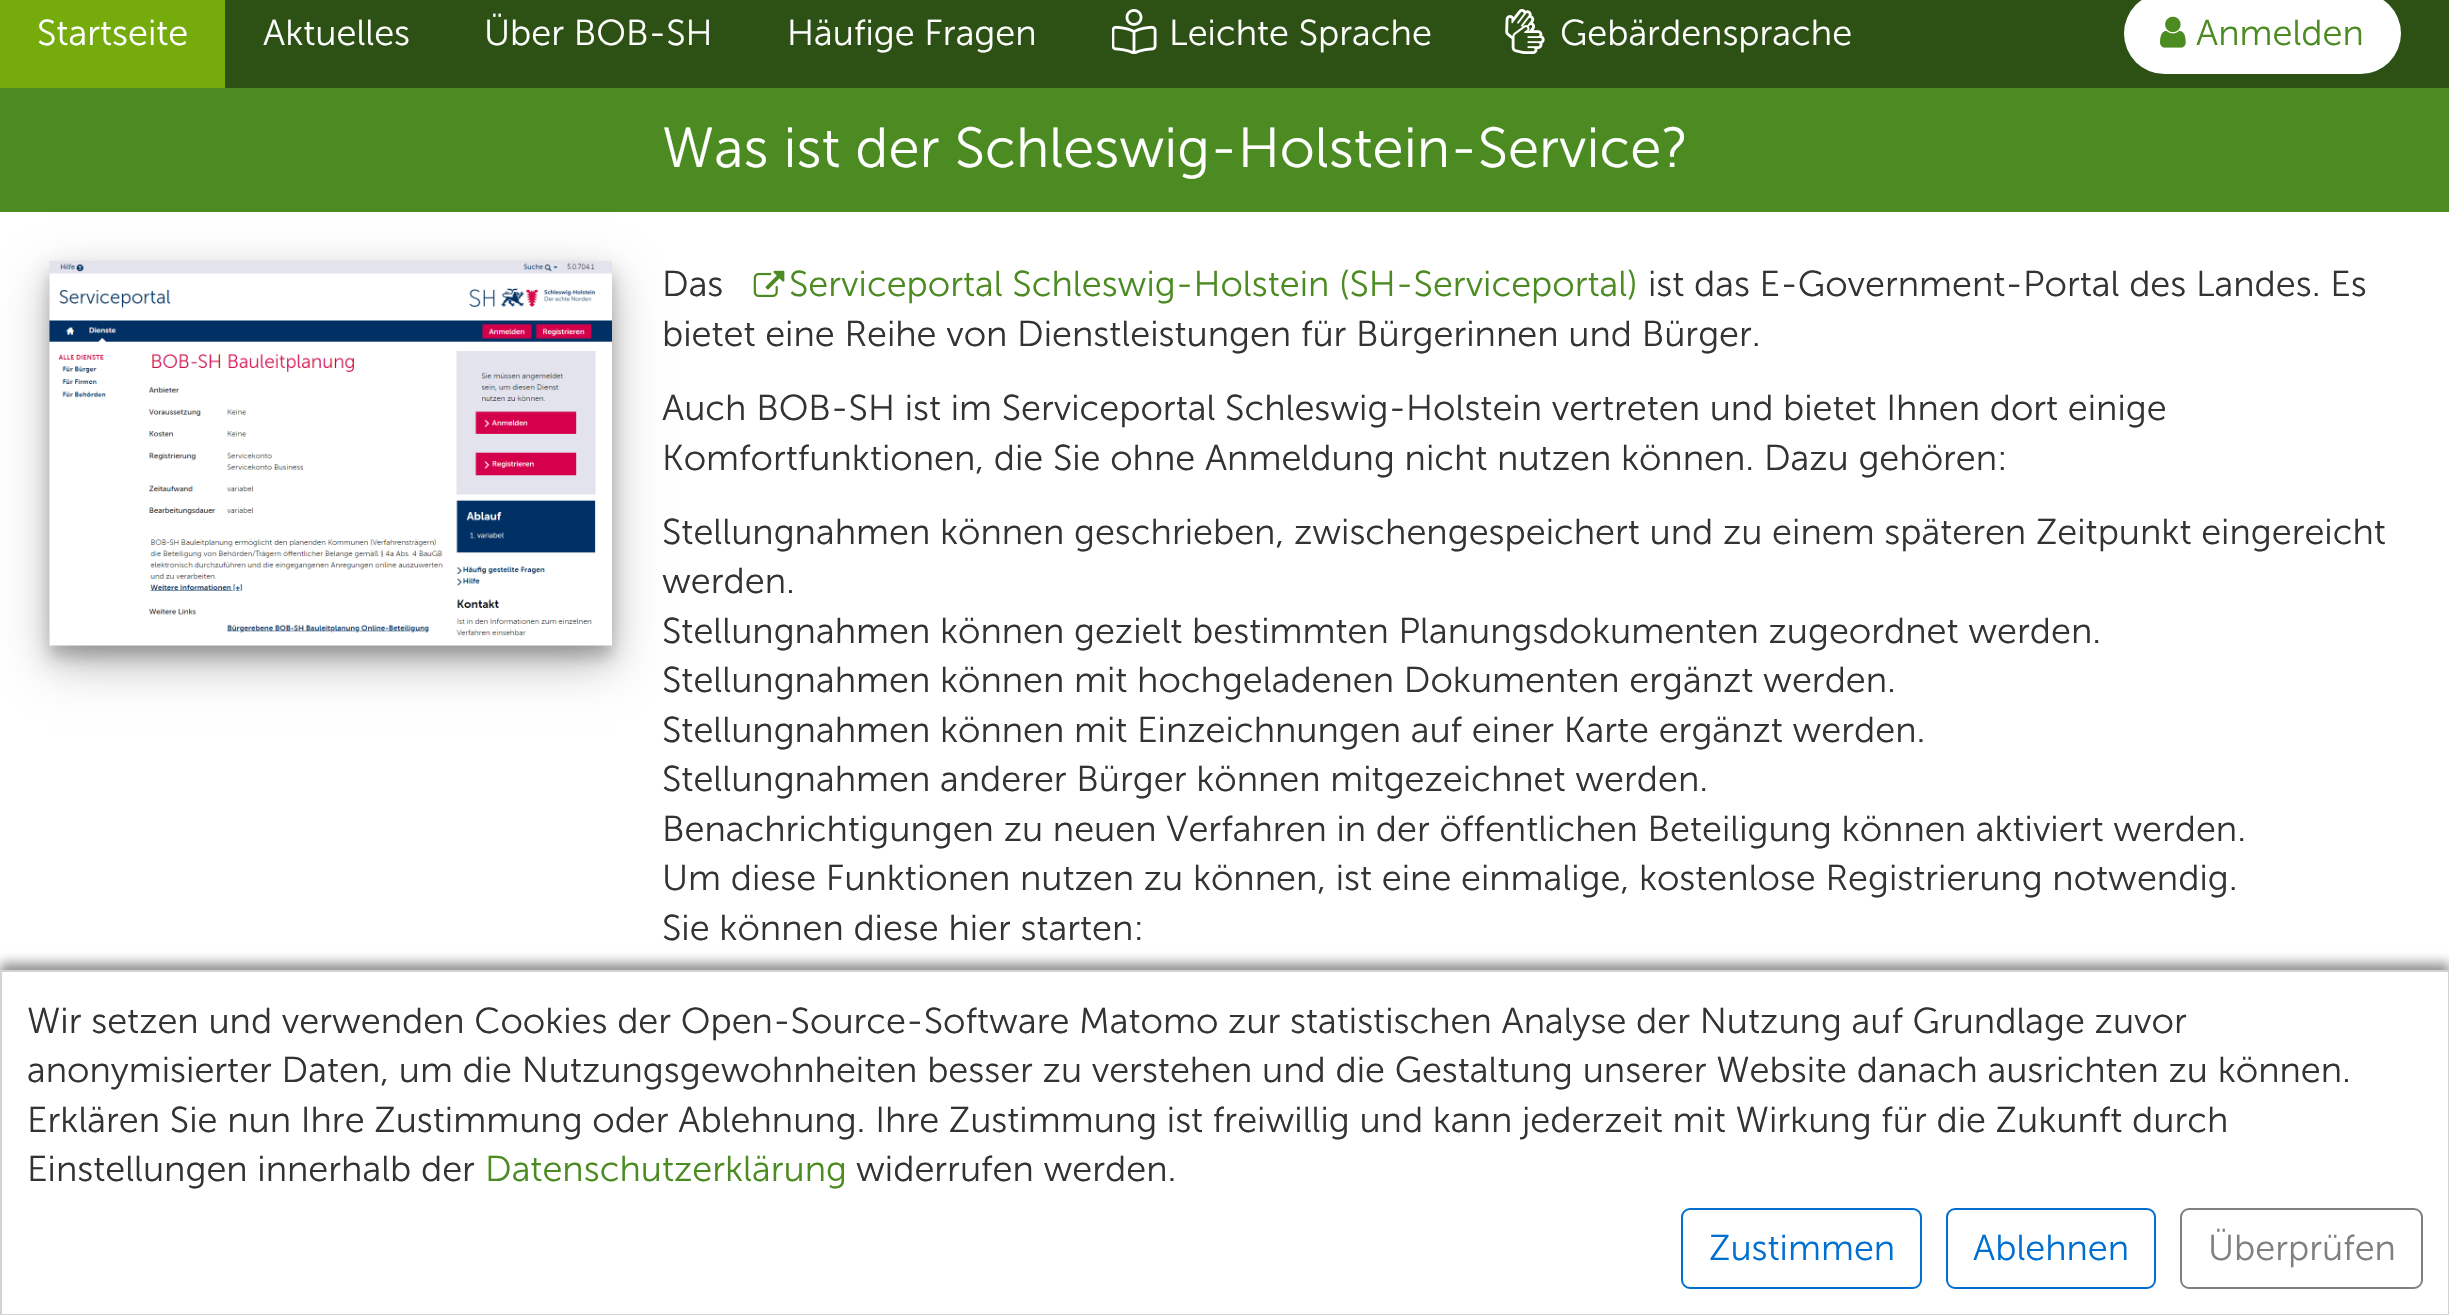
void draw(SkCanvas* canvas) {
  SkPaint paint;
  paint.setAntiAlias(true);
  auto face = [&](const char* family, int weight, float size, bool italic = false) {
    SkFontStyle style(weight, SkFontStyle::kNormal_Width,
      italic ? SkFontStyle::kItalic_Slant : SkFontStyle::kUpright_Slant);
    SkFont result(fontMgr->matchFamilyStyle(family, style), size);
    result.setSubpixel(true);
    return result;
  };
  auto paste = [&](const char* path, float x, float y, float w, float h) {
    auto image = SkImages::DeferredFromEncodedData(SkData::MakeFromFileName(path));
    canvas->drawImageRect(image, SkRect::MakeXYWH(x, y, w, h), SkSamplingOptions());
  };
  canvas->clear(0xffffffff);
  paint.setColor(0xff2d5114);
  canvas->drawRect(SkRect::MakeXYWH(225, 0, 2224, 88), paint);
  paint.setColor(0xff76ab0c);
  canvas->drawRect(SkRect::MakeXYWH(0, 0, 225, 88), paint);
  paste("img/1.png", 1112, 9, 45, 45);
  paste("img/2.png", 1505, 9, 40, 45);
  paint.setColor(0xffffffff);
  canvas->drawRoundRect(SkRect::MakeXYWH(2124, -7, 277, 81), 40.5f, 40.5f, paint);
  paste("img/3.png", 2160, 16, 26, 32);
  paint.setColor(0xff4c8b22);
  canvas->drawRect(SkRect::MakeXYWH(0, 88, 2449, 124), paint);
  paint.setColor(0x3d000000);
  paint.setMaskFilter(SkMaskFilter::MakeBlur(kNormal_SkBlurStyle, 8));
  canvas->drawRect(SkRect::MakeXYWH(50, 272, 562, 385), paint);
  paint.setMaskFilter(nullptr);
  paint.setColor(0x42000000);
  paint.setMaskFilter(SkMaskFilter::MakeBlur(kNormal_SkBlurStyle, 22.5f));
  canvas->drawRect(SkRect::MakeXYWH(50, 279, 562, 385), paint);
  paint.setMaskFilter(nullptr);
  paste("img/4.png", 49, 260, 563, 386);
  paste("img/5.png", 753, 270, 32, 27);
  paint.setColor(0x99484848);
  paint.setMaskFilter(SkMaskFilter::MakeBlur(kNormal_SkBlurStyle, 5.5f));
  canvas->drawRect(SkRect::MakeXYWH(0, 963, 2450, 347), paint);
  paint.setMaskFilter(nullptr);
  paint.setColor(0xffffffff);
  canvas->drawRect(SkRect::MakeXYWH(1, 971, 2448, 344), paint);
  paint.setStroke(true);
  paint.setStrokeWidth(2);
  paint.setColor(0xffd3d3d3);
  canvas->drawRect(SkRect::MakeXYWH(1, 971, 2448, 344), paint);
  paint.setColor(0xff006fd0);
  canvas->drawRoundRect(SkRect::MakeXYWH(1682, 1209, 239, 79), 8, 8, paint);
  canvas->drawRoundRect(SkRect::MakeXYWH(1947, 1209, 208, 79), 8, 8, paint);
  paint.setColor(0xff808080);
  canvas->drawRoundRect(SkRect::MakeXYWH(2181, 1209, 241, 79), 8, 8, paint);
  auto f0 = face("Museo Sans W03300", 300, 36);
  paint.setStroke(false);
  paint.setColor(0xffffffff);
  {
    const struct { const char* s; float x, y; } items[] = {
      {"Startseite", 37, 45},
      {"Aktuelles", 263, 45},
      {"Über BOB-SH", 484, 45},
      {"Häufige Fragen", 787, 45},
      {"Leichte Sprache", 1169, 45},
      {"Gebärdensprache", 1560, 45},
    };
    for (auto [s, x, y] : items) {
      canvas->drawString(s, x, y, f0, paint);
    }
  }
  paint.setColor(0xff4c8b22);
  canvas->drawString("Anmelden", 2196, 45, f0, paint);
  auto f1 = face("Museo Sans W03300", 300, 56.25f);
  paint.setColor(0xffffffff);
  canvas->drawString("Was ist der Schleswig-Holstein-Service?", 662, 167, f1, paint);
  paint.setColor(0xff333333);
  canvas->drawString("Das", 662, 296, f0, paint);
  paint.setColor(0xff4c8b22);
  canvas->drawString("Serviceportal Schleswig-Holstein (SH-Serviceportal)", 789, 296, f0, paint);
  paint.setColor(0xff333333);
  {
    const struct { const char* s; float x, y; } items[] = {
      {"ist das E-Government-Portal des Landes. Es", 1648, 296},
      {"bietet eine Reihe von Dienstleistungen für Bürgerinnen und Bürger.", 662, 346},
      {"Auch BOB-SH ist im Serviceportal Schleswig-Holstein vertreten und bietet Ihnen dort einige", 662, 420},
      {"Komfortfunktionen, die Sie ohne Anmeldung nicht nutzen können. Dazu gehören:", 662, 470},
      {"Stellungnahmen können geschrieben, zwischengespeichert und zu einem späteren Zeitpunkt eingereicht", 662, 544},
      {"werden.", 662, 593},
      {"Stellungnahmen können gezielt bestimmten Planungsdokumenten zugeordnet werden.", 662, 643},
      {"Stellungnahmen können mit hochgeladenen Dokumenten ergänzt werden.", 662, 692},
      {"Stellungnahmen können mit Einzeichnungen auf einer Karte ergänzt werden.", 662, 742},
      {"Stellungnahmen anderer Bürger können mitgezeichnet werden.", 662, 791},
      {"Benachrichtigungen zu neuen Verfahren in der öffentlichen Beteiligung können aktiviert werden.", 662, 841},
      {"Um diese Funktionen nutzen zu können, ist eine einmalige, kostenlose Registrierung notwendig.", 662, 890},
      {"Sie können diese hier starten:", 662, 940},
      {"Wir setzen und verwenden Cookies der Open-Source-Software Matomo zur statistischen Analyse der Nutzung auf Grundlage zuvor", 27, 1033},
      {"anonymisierter Daten, um die Nutzungsgewohnheiten besser zu verstehen und die Gestaltung unserer Website danach ausrichten zu können.", 27, 1082},
      {"Erklären Sie nun Ihre Zustimmung oder Ablehnung. Ihre Zustimmung ist freiwillig und kann jederzeit mit Wirkung für die Zukunft durch", 27, 1132},
      {"Einstellungen innerhalb der", 27, 1181},
    };
    for (auto [s, x, y] : items) {
      canvas->drawString(s, x, y, f0, paint);
    }
  }
  paint.setColor(0xff4c8b22);
  canvas->drawString("Datenschutzerklärung", 485, 1181, f0, paint);
  paint.setColor(0xff333333);
  canvas->drawString("widerrufen werden.", 856, 1181, f0, paint);
  paint.setColor(0xff006fd0);
  canvas->drawString("Zustimmen", 1709, 1260, f0, paint);
  canvas->drawString("Ablehnen", 1973, 1260, f0, paint);
  paint.setColor(0xff808080);
  canvas->drawString("Überprüfen", 2208, 1260, f0, paint);
}
